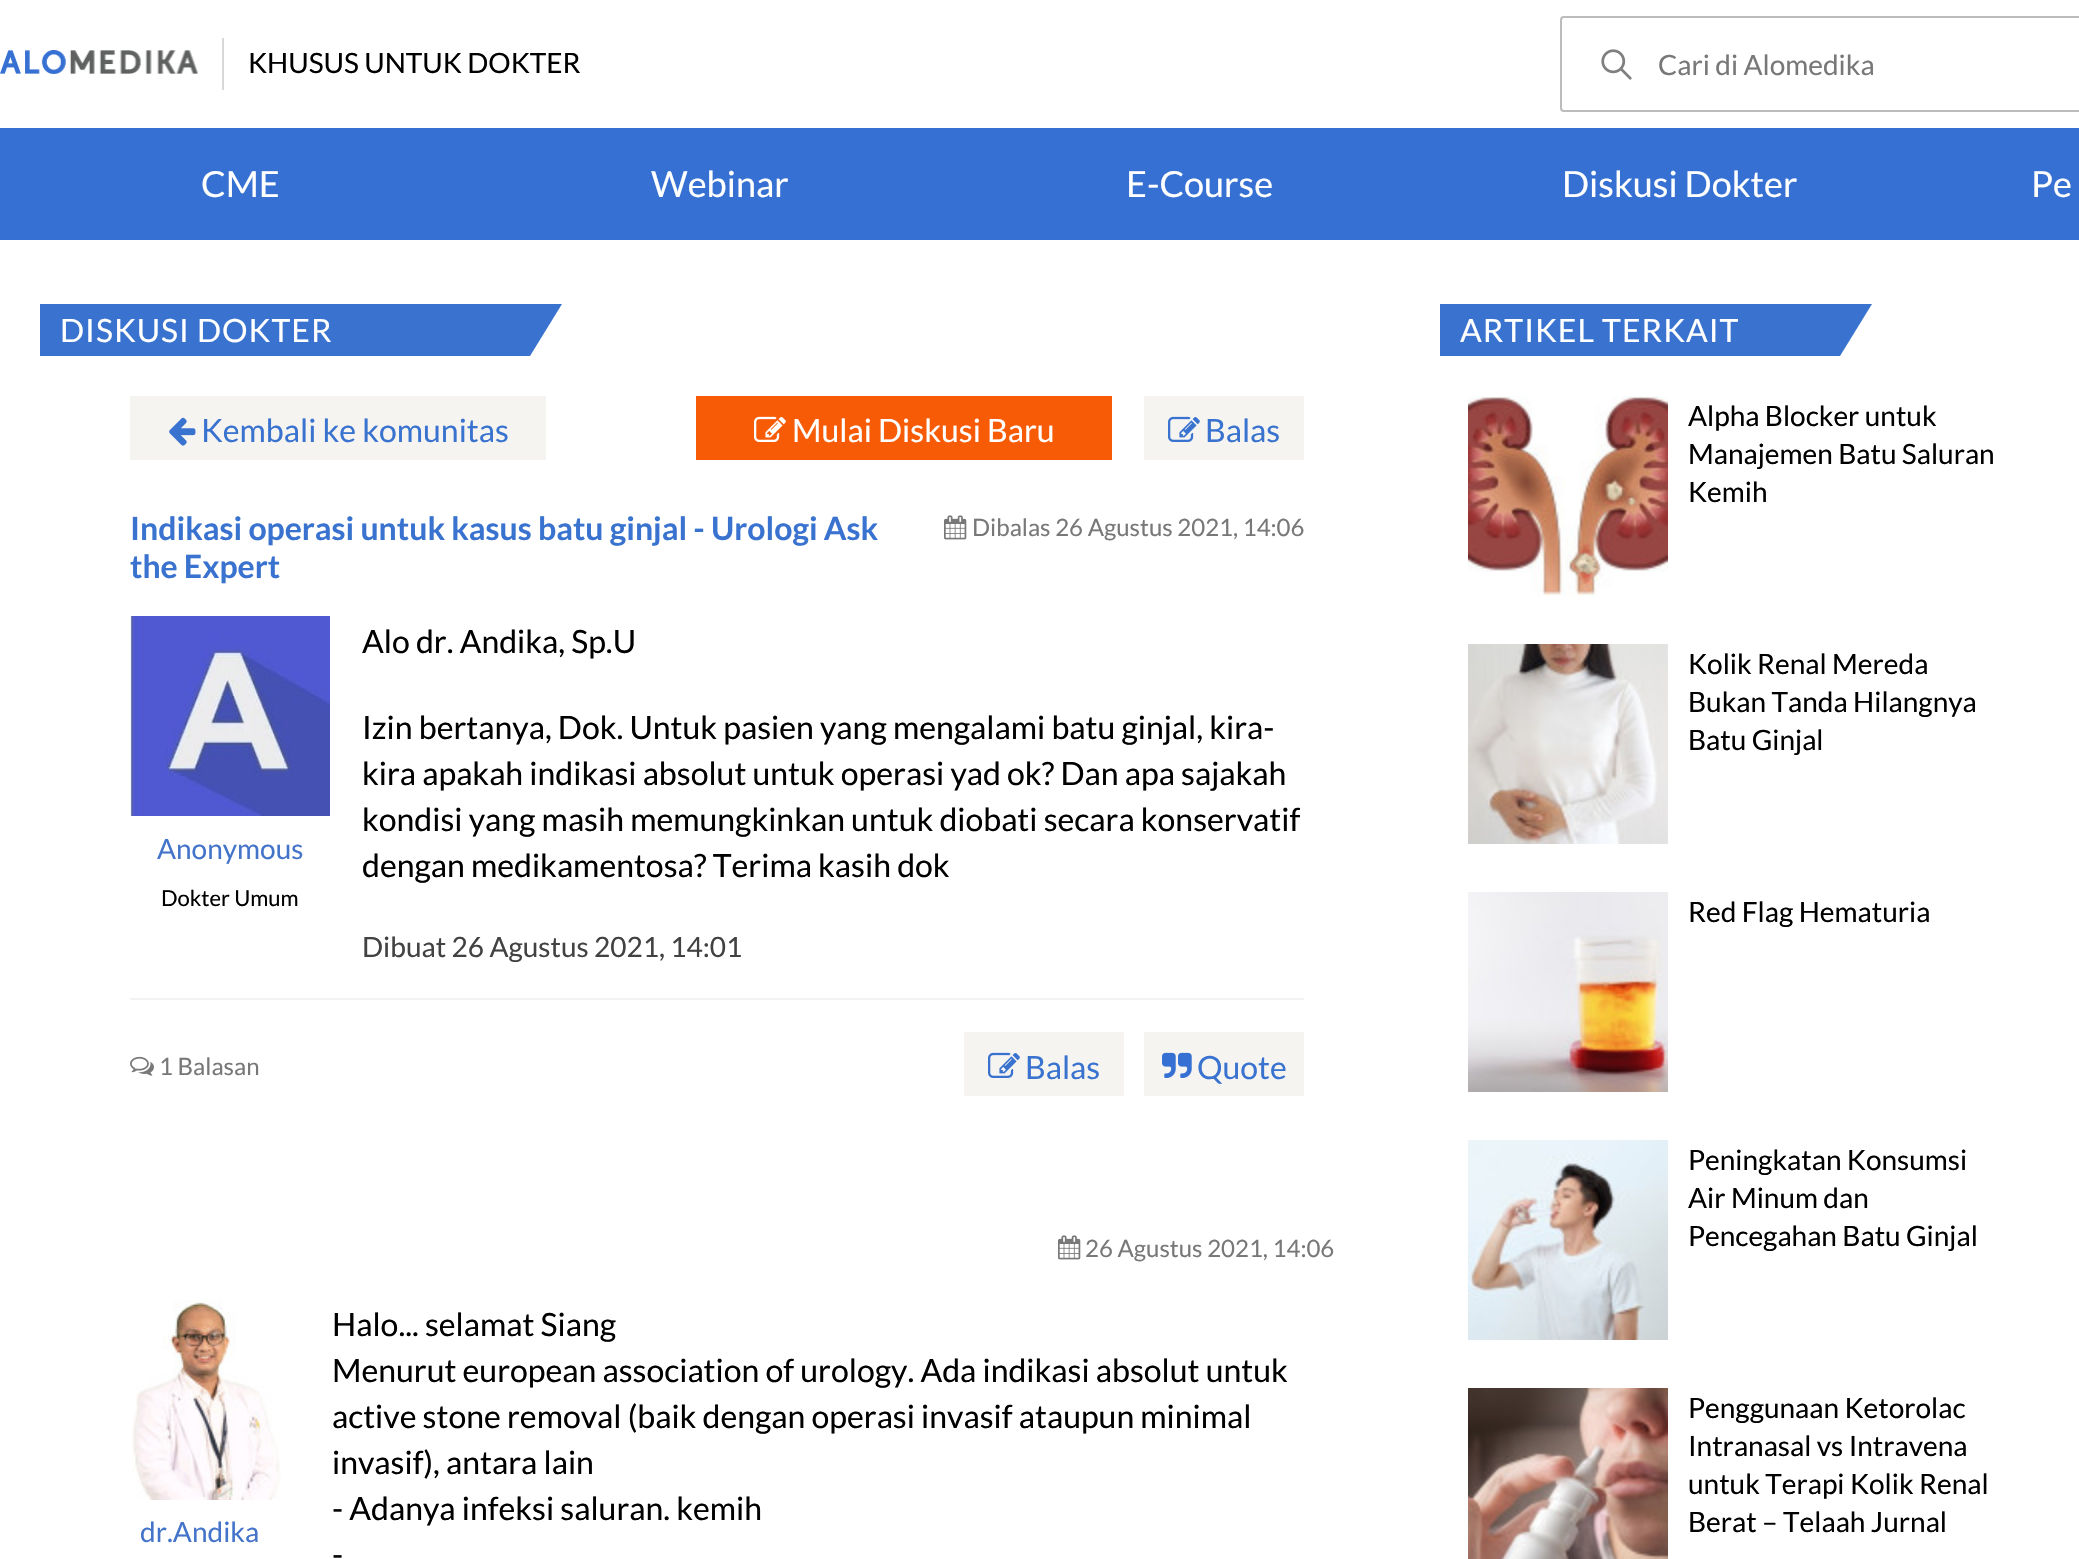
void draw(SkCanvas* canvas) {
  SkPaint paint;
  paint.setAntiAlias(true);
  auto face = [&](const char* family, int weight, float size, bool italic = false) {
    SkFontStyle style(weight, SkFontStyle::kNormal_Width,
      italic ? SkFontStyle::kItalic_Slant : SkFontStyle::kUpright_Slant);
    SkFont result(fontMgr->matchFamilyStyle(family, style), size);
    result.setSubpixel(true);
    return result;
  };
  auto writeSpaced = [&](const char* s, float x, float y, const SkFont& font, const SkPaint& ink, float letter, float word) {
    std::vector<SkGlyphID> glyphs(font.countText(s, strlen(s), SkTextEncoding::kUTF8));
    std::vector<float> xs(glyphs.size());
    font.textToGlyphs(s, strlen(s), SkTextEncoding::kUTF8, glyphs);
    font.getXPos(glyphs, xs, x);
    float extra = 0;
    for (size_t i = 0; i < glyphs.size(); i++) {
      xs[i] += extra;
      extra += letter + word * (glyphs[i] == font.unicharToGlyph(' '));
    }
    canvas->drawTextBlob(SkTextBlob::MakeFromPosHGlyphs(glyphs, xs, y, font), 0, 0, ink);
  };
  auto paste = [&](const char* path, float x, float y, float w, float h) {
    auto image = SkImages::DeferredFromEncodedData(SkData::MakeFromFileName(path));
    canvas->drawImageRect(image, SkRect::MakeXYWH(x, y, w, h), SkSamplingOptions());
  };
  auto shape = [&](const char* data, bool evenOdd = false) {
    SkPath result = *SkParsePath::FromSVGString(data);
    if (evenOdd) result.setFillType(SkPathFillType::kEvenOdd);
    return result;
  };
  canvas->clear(0xffffffff);
  paste("img/1.png", 0, 50, 198, 24);
  paint.setColor(0xffd8d8d8);
  canvas->drawRect(SkRect::MakeXYWH(222, 38, 2, 52), paint);
  paste("img/2.png", 1601, 49, 31, 31);
  paint.setStroke(true);
  paint.setStrokeWidth(2);
  paint.setColor(0xffbcbcbc);
  canvas->drawRoundRect(SkRect::MakeXYWH(1561, 17, 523, 94), 3, 3, paint);
  paint.setStroke(false);
  paint.setColor(0xff3570d2);
  canvas->drawRect(SkRect::MakeXYWH(0, 128, 2079, 112), paint);
  paint.setColor(0xff3973cf);
  canvas->drawRect(SkRect::MakeXYWH(40, 304, 490, 52), paint);
  canvas->drawPath(shape("M530 356V304H562Z"), paint);
  paint.setColor(0xfff6f4f1);
  canvas->drawRect(SkRect::MakeXYWH(130, 396, 416, 64), paint);
  paste("img/3.png", 169, 417, 27, 29);
  paint.setColor(0xfff85b06);
  canvas->drawRect(SkRect::MakeXYWH(696, 396, 416, 64), paint);
  paste("img/4.png", 754, 416, 32, 26);
  paint.setColor(0xfff6f4f1);
  canvas->drawRect(SkRect::MakeXYWH(1144, 396, 160, 64), paint);
  paste("img/5.png", 1168, 416, 32, 26);
  paste("img/6.png", 944, 515, 23, 25);
  paint.setColor(0xfff3f3f3);
  canvas->drawRect(SkRect::MakeXYWH(130, 998, 1174, 2), paint);
  paste("img/7.png", 130, 616, 200, 200);
  paste("img/8.png", 130, 1056, 24, 20);
  paint.setColor(0xfff6f4f1);
  canvas->drawRect(SkRect::MakeXYWH(964, 1032, 160, 64), paint);
  paste("img/5.png", 988, 1052, 32, 26);
  canvas->drawRect(SkRect::MakeXYWH(1144, 1032, 160, 64), paint);
  paste("img/9.png", 1162, 1052, 30, 26);
  paste("img/6.png", 1058, 1235, 23, 25);
  paste("img/10.png", 132, 1300, 149, 200);
  paint.setColor(0xff3973cf);
  canvas->drawRect(SkRect::MakeXYWH(1440, 304, 400, 52), paint);
  canvas->drawPath(shape("M1840 356V304H1872Z"), paint);
  paste("img/11.png", 1468, 396, 200, 200);
  paste("img/12.png", 1468, 644, 200, 200);
  paste("img/13.png", 1468, 892, 200, 200);
  paste("img/14.png", 1468, 1140, 200, 200);
  paste("img/15.png", 1468, 1388, 200, 171);
  auto f0 = face("Lato", 400, 28);
  paint.setColor(0xff000000);
  canvas->drawString("KHUSUS UNTUK DOKTER", 248, 73, f0, paint);
  paint.setColor(0xff787878);
  canvas->drawString("Cari di Alomedika", 1658, 75, f0, paint);
  auto f1 = face("Lato", 400, 36);
  paint.setColor(0xffffffff);
  {
    const struct { const char* s; float x, y; } items[] = {
      {"CME", 201, 197},
      {"Webinar", 651, 197},
      {"E-Course", 1126, 197},
      {"Diskusi Dokter", 1562, 197},
      {"Pe", 2031, 197},
    };
    for (auto [s, x, y] : items) {
      canvas->drawString(s, x, y, f1, paint);
    }
  }
  auto f2 = face("Lato", 400, 32);
  writeSpaced("DISKUSI DOKTER", 60, 342, f2, paint, 1, 0);
  paint.setColor(0xff3973cf);
  canvas->drawString("Kembali ke komunitas", 201, 442, f2, paint);
  paint.setColor(0xffffffff);
  canvas->drawString("Mulai Diskusi Baru", 792, 442, f2, paint);
  paint.setColor(0xff3973cf);
  canvas->drawString("Balas", 1205, 442, f2, paint);
  auto f3 = face("Lato", 700, 32);
  canvas->drawString("Indikasi operasi untuk kasus batu ginjal - Urologi Ask", 130, 540, f3, paint);
  canvas->drawString("the Expert", 130, 578, f3, paint);
  auto f4 = face("Lato", 400, 24);
  paint.setColor(0xff787878);
  canvas->drawString("Dibalas 26 Agustus 2021, 14:06", 972, 536, f4, paint);
  paint.setColor(0xff4474c9);
  canvas->drawString("Anonymous", 157, 859, f0, paint);
  auto f5 = face("Lato", 400, 22);
  paint.setColor(0xff000000);
  canvas->drawString("Dokter Umum", 161, 906, f5, paint);
  {
    const struct { const char* s; float x, y; } items[] = {
      {"Alo dr. Andika, Sp.U", 362, 653},
      {"Izin bertanya, Dok. Untuk pasien yang mengalami batu ginjal, kira-", 362, 739},
      {"kira apakah indikasi absolut untuk operasi yad ok? Dan apa sajakah", 362, 785},
      {"kondisi yang masih memungkinkan untuk diobati secara konservatif", 362, 831},
      {"dengan medikamentosa? Terima kasih dok", 362, 877},
    };
    for (auto [s, x, y] : items) {
      canvas->drawString(s, x, y, f2, paint);
    }
  }
  paint.setColor(0xff424242);
  canvas->drawString("Dibuat 26 Agustus 2021, 14:01", 362, 957, f0, paint);
  paint.setColor(0xff787878);
  canvas->drawString("1 Balasan", 159, 1075, f4, paint);
  paint.setColor(0xff3973cf);
  canvas->drawString("Balas", 1025, 1079, f2, paint);
  canvas->drawString("Quote", 1197, 1079, f2, paint);
  paint.setColor(0xff787878);
  canvas->drawString("26 Agustus 2021, 14:06", 1085, 1257, f4, paint);
  paint.setColor(0xff4474c9);
  canvas->drawString("dr.Andika", 140, 1542, f0, paint);
  paint.setColor(0xff000000);
  {
    const struct { const char* s; float x, y; } items[] = {
      {"Halo... selamat Siang", 332, 1336},
      {"Menurut european association of urology. Ada indikasi absolut untuk", 332, 1382},
      {"active stone removal (baik dengan operasi invasif ataupun minimal", 332, 1428},
      {"invasif), antara lain", 332, 1474},
      {"- Adanya infeksi saluran. kemih", 332, 1520},
      {"-", 332, 1566},
    };
    for (auto [s, x, y] : items) {
      canvas->drawString(s, x, y, f2, paint);
    }
  }
  paint.setColor(0xffffffff);
  writeSpaced("ARTIKEL TERKAIT", 1460, 342, f2, paint, 1, 0);
  paint.setColor(0xff000000);
  {
    const struct { const char* s; float x, y; } items[] = {
      {"Alpha Blocker untuk", 1688, 426},
      {"Manajemen Batu Saluran", 1688, 464},
      {"Kemih", 1688, 502},
      {"Kolik Renal Mereda", 1688, 674},
      {"Bukan Tanda Hilangnya", 1688, 712},
      {"Batu Ginjal", 1688, 750},
      {"Red Flag Hematuria", 1688, 922},
      {"Peningkatan Konsumsi", 1688, 1170},
      {"Air Minum dan", 1688, 1208},
      {"Pencegahan Batu Ginjal", 1688, 1246},
      {"Penggunaan Ketorolac", 1688, 1418},
      {"Intranasal vs Intravena", 1688, 1456},
      {"untuk Terapi Kolik Renal", 1688, 1494},
      {"Berat – Telaah Jurnal", 1688, 1532},
    };
    for (auto [s, x, y] : items) {
      canvas->drawString(s, x, y, f0, paint);
    }
  }
}
